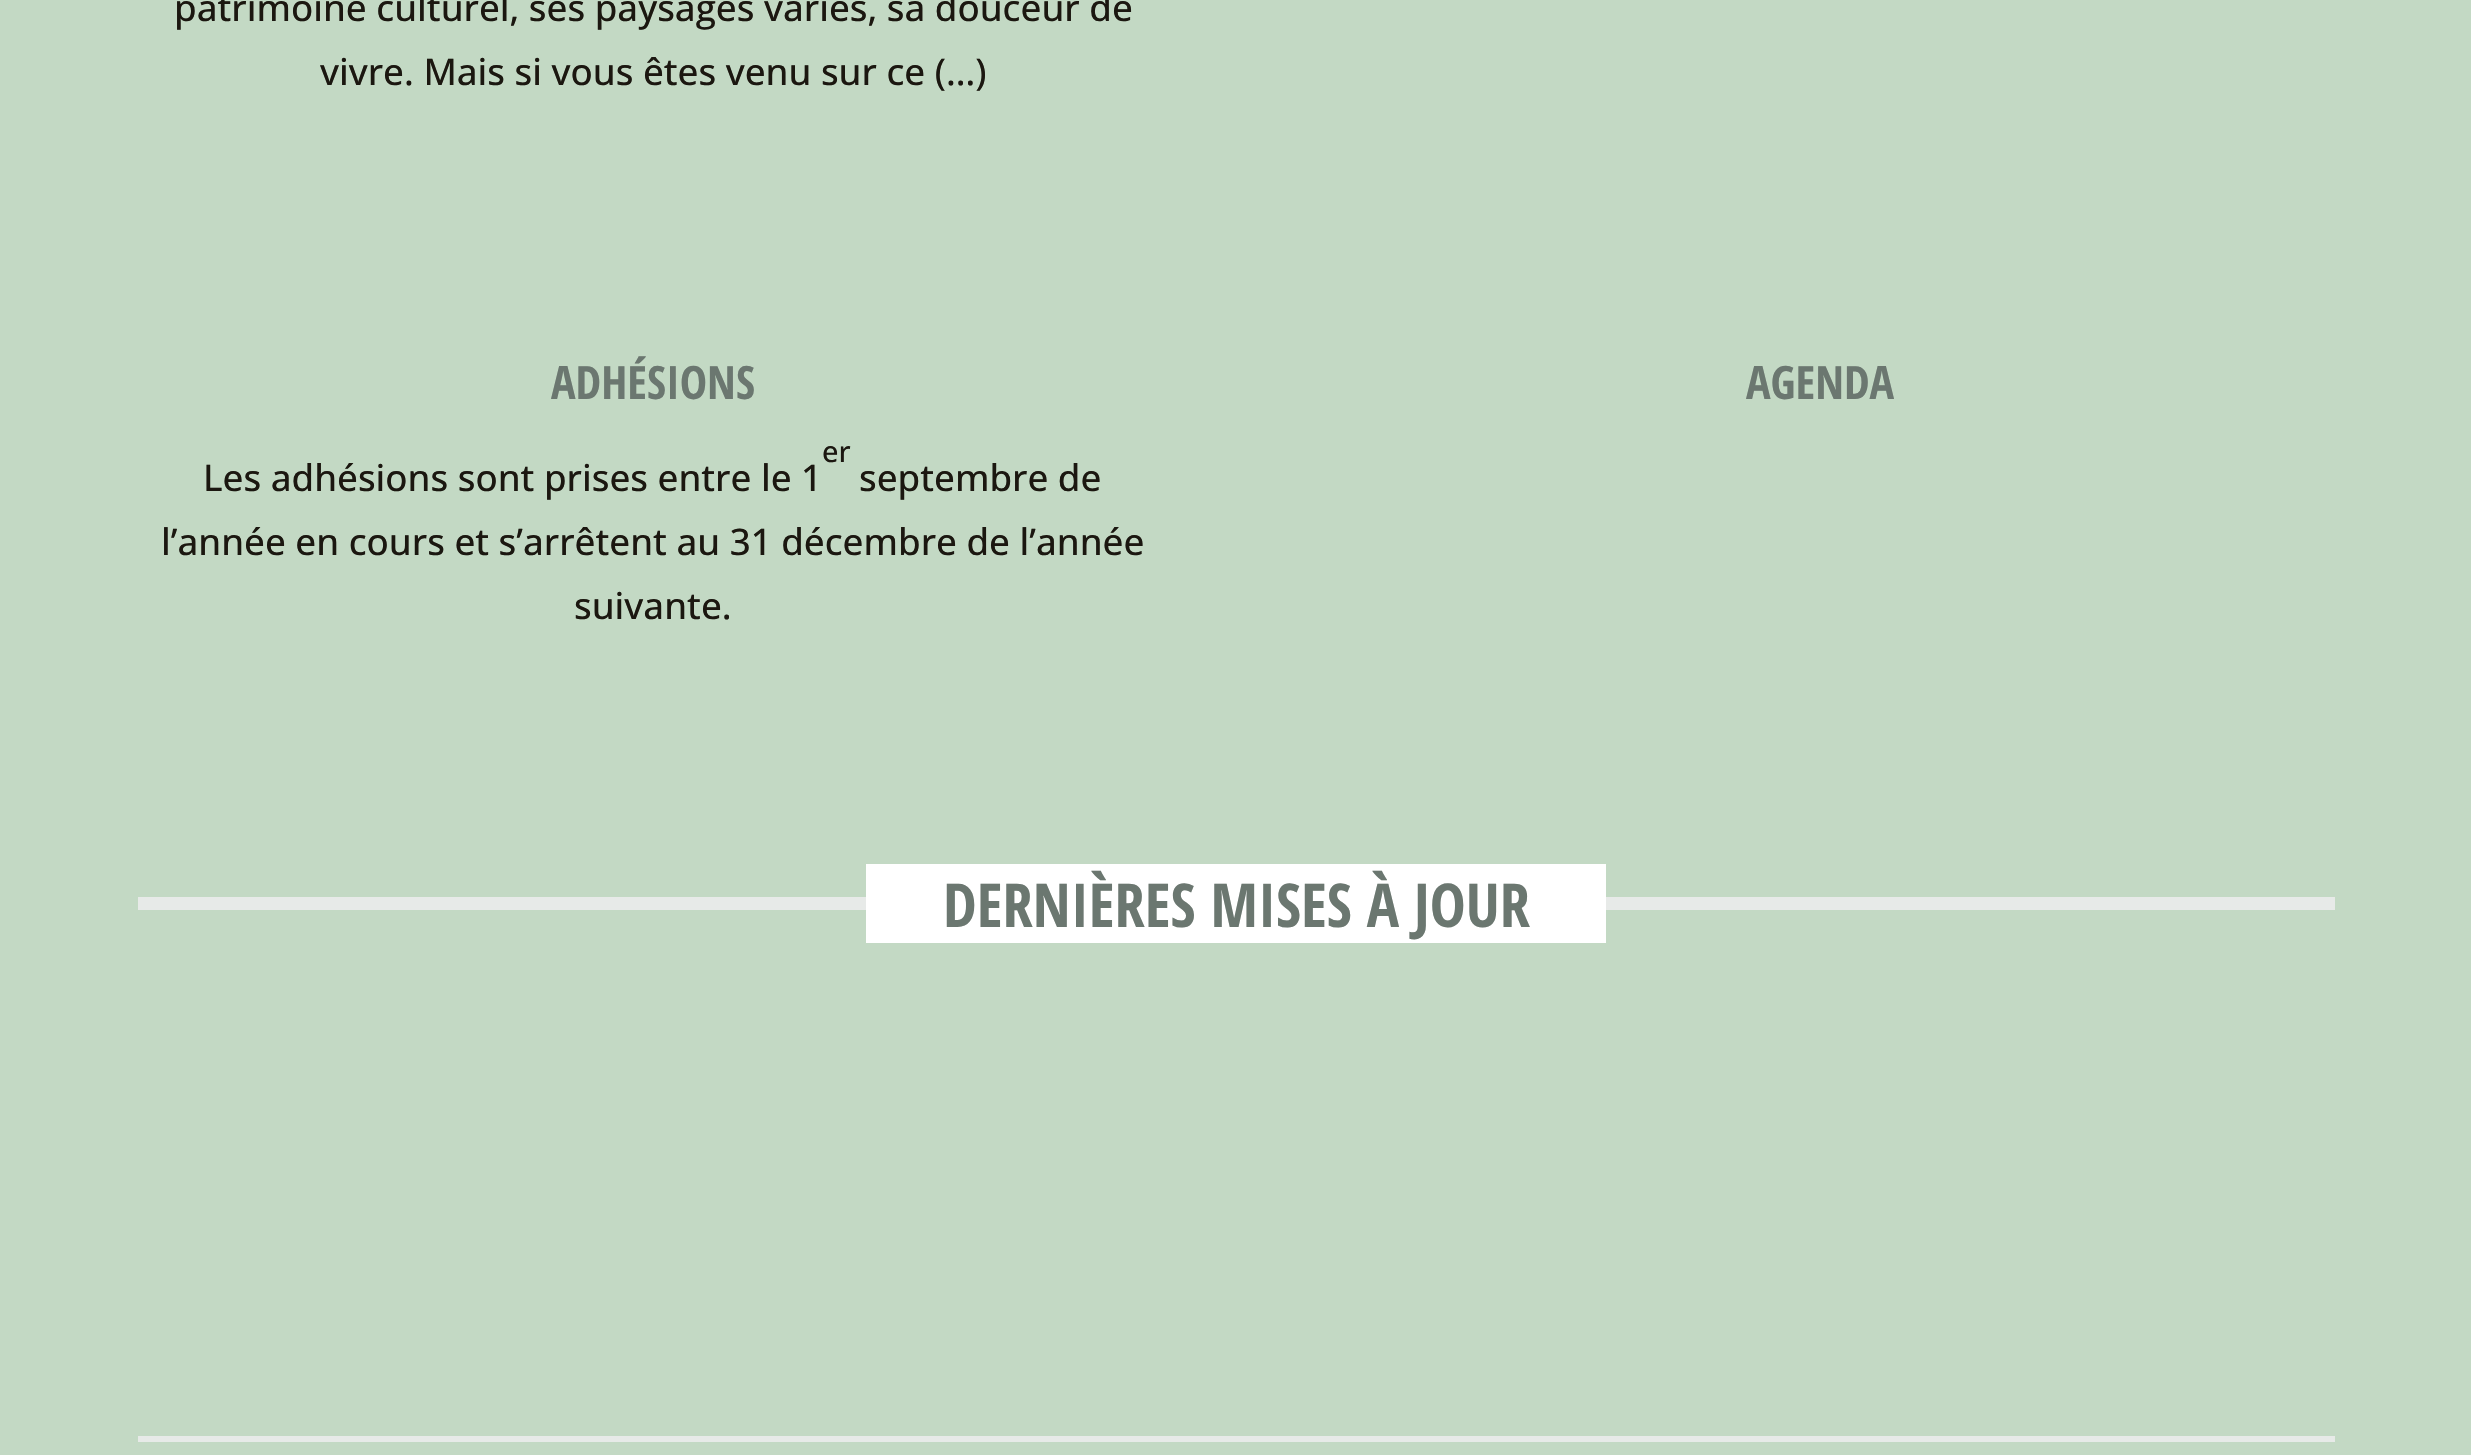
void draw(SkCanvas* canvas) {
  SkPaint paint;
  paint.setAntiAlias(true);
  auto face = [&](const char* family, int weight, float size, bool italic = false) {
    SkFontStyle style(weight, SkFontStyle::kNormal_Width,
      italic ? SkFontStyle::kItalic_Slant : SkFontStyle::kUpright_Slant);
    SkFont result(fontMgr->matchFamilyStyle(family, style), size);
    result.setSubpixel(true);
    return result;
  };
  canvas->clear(0xffc3d9c4);
  {
    const struct { float x, y, w, h; SkColor color; } items[] = {
      {138, 897, 2197, 13, 0xffe7eae8},
      {866, 864, 740, 79, 0xffffffff},
      {138, 1436, 2197, 6, 0xffe7eae8},
    };
    for (auto [x, y, w, h, color] : items) {
      paint.setColor(color);
      canvas->drawRect(SkRect::MakeXYWH(x, y, w, h), paint);
    }
  }
  auto f0 = face("Open Sans", 500, 36.7f);
  paint.setColor(0xff1b1710);
  canvas->drawString("patrimoine culturel, ses paysages variés, sa douceur de", 174, 21, f0, paint);
  canvas->drawString("vivre. Mais si vous êtes venu sur ce (…)", 320, 85, f0, paint);
  auto f1 = face("Open Sans Condensed", 700, 46);
  paint.setColor(0xff6b7770);
  canvas->drawString("ADHÉSIONS", 551, 399, f1, paint);
  auto f2 = face("Open Sans", 500, 29);
  paint.setColor(0xff1b1710);
  canvas->drawString("er", 822, 462, f2, paint);
  {
    const struct { const char* s; float x, y; } items[] = {
      {"Les adhésions sont prises entre le 1", 203, 491},
      {"septembre de", 859, 491},
      {"l’année en cours et s’arrêtent au 31 décembre de l’année", 161, 555},
      {"suivante.", 574, 619},
    };
    for (auto [s, x, y] : items) {
      canvas->drawString(s, x, y, f0, paint);
    }
  }
  paint.setColor(0xff6b7770);
  canvas->drawString("AGENDA", 1746, 399, f1, paint);
  auto f3 = face("Open Sans Condensed", 700, 60.5f);
  canvas->drawString("DERNIÈRES MISES À JOUR", 943, 927, f3, paint);
}
